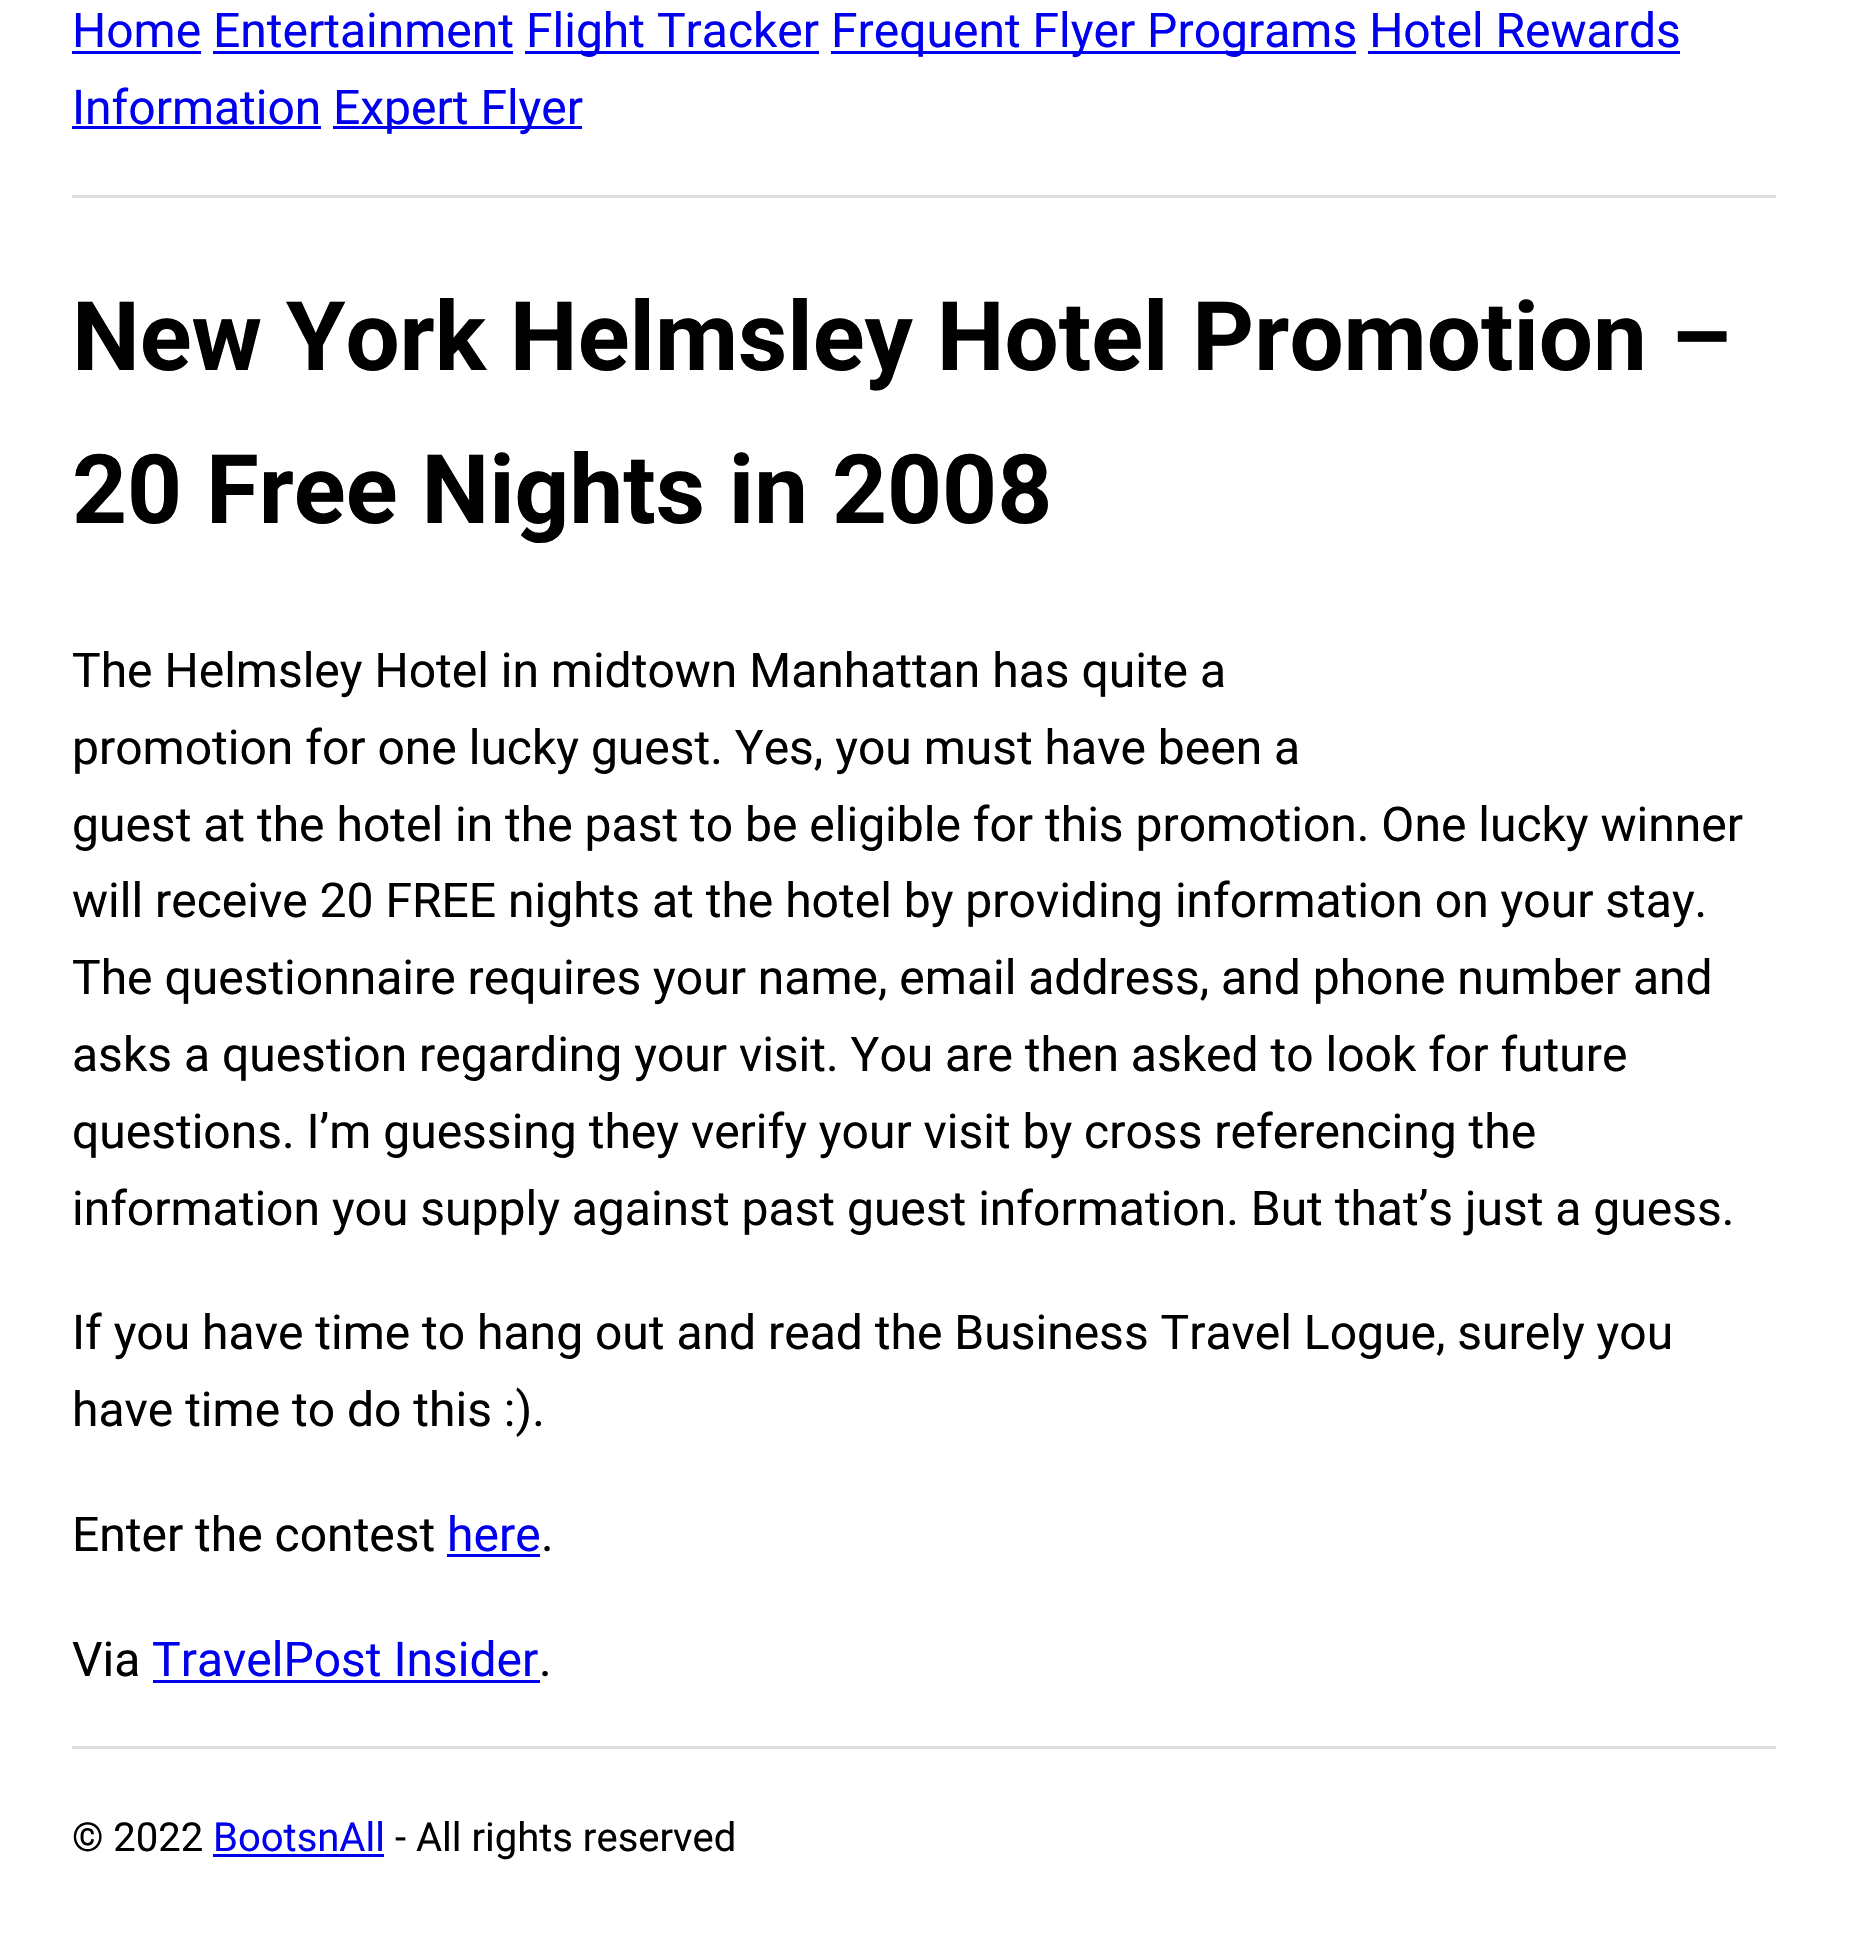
void draw(SkCanvas* canvas) {
  SkPaint paint;
  paint.setAntiAlias(true);
  auto face = [&](const char* family, int weight, float size, bool italic = false) {
    SkFontStyle style(weight, SkFontStyle::kNormal_Width,
      italic ? SkFontStyle::kItalic_Slant : SkFontStyle::kUpright_Slant);
    SkFont result(fontMgr->matchFamilyStyle(family, style), size);
    result.setSubpixel(true);
    return result;
  };
  canvas->clear(0xffffffff);
  {
    const struct { float x, y, w, h; SkColor color; } items[] = {
      {72, 51, 129, 3, 0xff0000ee},
      {525, 51, 294, 3, 0xff0000ee},
      {831, 51, 525, 3, 0xff0000ee},
      {213, 51, 300, 3, 0xff0000ee},
      {1368, 51, 312, 3, 0xff0000ee},
      {72, 126, 249, 3, 0xff0000ee},
      {333, 126, 249, 3, 0xff0000ee},
      {72, 195, 1704, 3, 0xffdddddd},
      {447, 1554, 93, 3, 0xff0000ee},
      {153, 1680, 387, 3, 0xff0000ee},
      {72, 1746, 1704, 3, 0xffdddddd},
      {213, 1854, 171, 3, 0xff0000ee},
    };
    for (auto [x, y, w, h, color] : items) {
      paint.setColor(color);
      canvas->drawRect(SkRect::MakeXYWH(x, y, w, h), paint);
    }
  }
  auto f0 = face("Roboto", 400, 48);
  {
    const struct { const char* s; float x, y; } items[] = {
      {"Home Entertainment", 72, 47},
      {"Flight Tracker", 526, 47},
      {"Frequent Flyer Programs Hotel Rewards", 831, 47},
      {"Information", 72, 124},
      {"Expert Flyer", 333, 124},
    };
    for (auto [s, x, y] : items) {
      canvas->drawString(s, x, y, f0, paint);
    }
  }
  auto f1 = face("Roboto", 700, 96);
  paint.setColor(0xff000000);
  canvas->drawString("New York Helmsley Hotel Promotion –", 72, 370, f1, paint);
  canvas->drawString("20 Free Nights in 2008", 72, 523, f1, paint);
  {
    const struct { const char* s; float x, y; } items[] = {
      {"The Helmsley Hotel in midtown Manhattan has quite a", 72, 687},
      {"promotion for one lucky guest. Yes, you must have been a", 72, 764},
      {"guest at the hotel in the past to be eligible for this promotion. One lucky winner", 72, 841},
      {"will receive 20 FREE nights at the hotel by providing information on your stay.", 72, 917},
      {"The questionnaire requires your name, email address, and phone number and", 72, 994},
      {"asks a question regarding your visit. You are then asked to look for future", 72, 1071},
      {"questions. I’m guessing they verify your visit by cross referencing the", 72, 1148},
      {"information you supply against past guest information. But that’s just a guess.", 72, 1225},
      {"If you have time to hang out and read the Business Travel Logue, surely you", 72, 1349},
      {"have time to do this :).", 72, 1426},
      {"Enter the contest", 72, 1551},
    };
    for (auto [s, x, y] : items) {
      canvas->drawString(s, x, y, f0, paint);
    }
  }
  paint.setColor(0xff0000ee);
  canvas->drawString("here", 447, 1551, f0, paint);
  paint.setColor(0xff000000);
  canvas->drawString(".", 541, 1551, f0, paint);
  canvas->drawString("Via", 72, 1676, f0, paint);
  paint.setColor(0xff0000ee);
  canvas->drawString("TravelPost Insider", 152, 1676, f0, paint);
  paint.setColor(0xff000000);
  canvas->drawString(".", 539, 1676, f0, paint);
  auto f2 = face("Roboto", 400, 40);
  canvas->drawString("© 2022", 72, 1851, f2, paint);
  paint.setColor(0xff0000ee);
  canvas->drawString("BootsnAll", 213, 1851, f2, paint);
  paint.setColor(0xff000000);
  canvas->drawString("- All rights reserved", 395, 1851, f2, paint);
}
